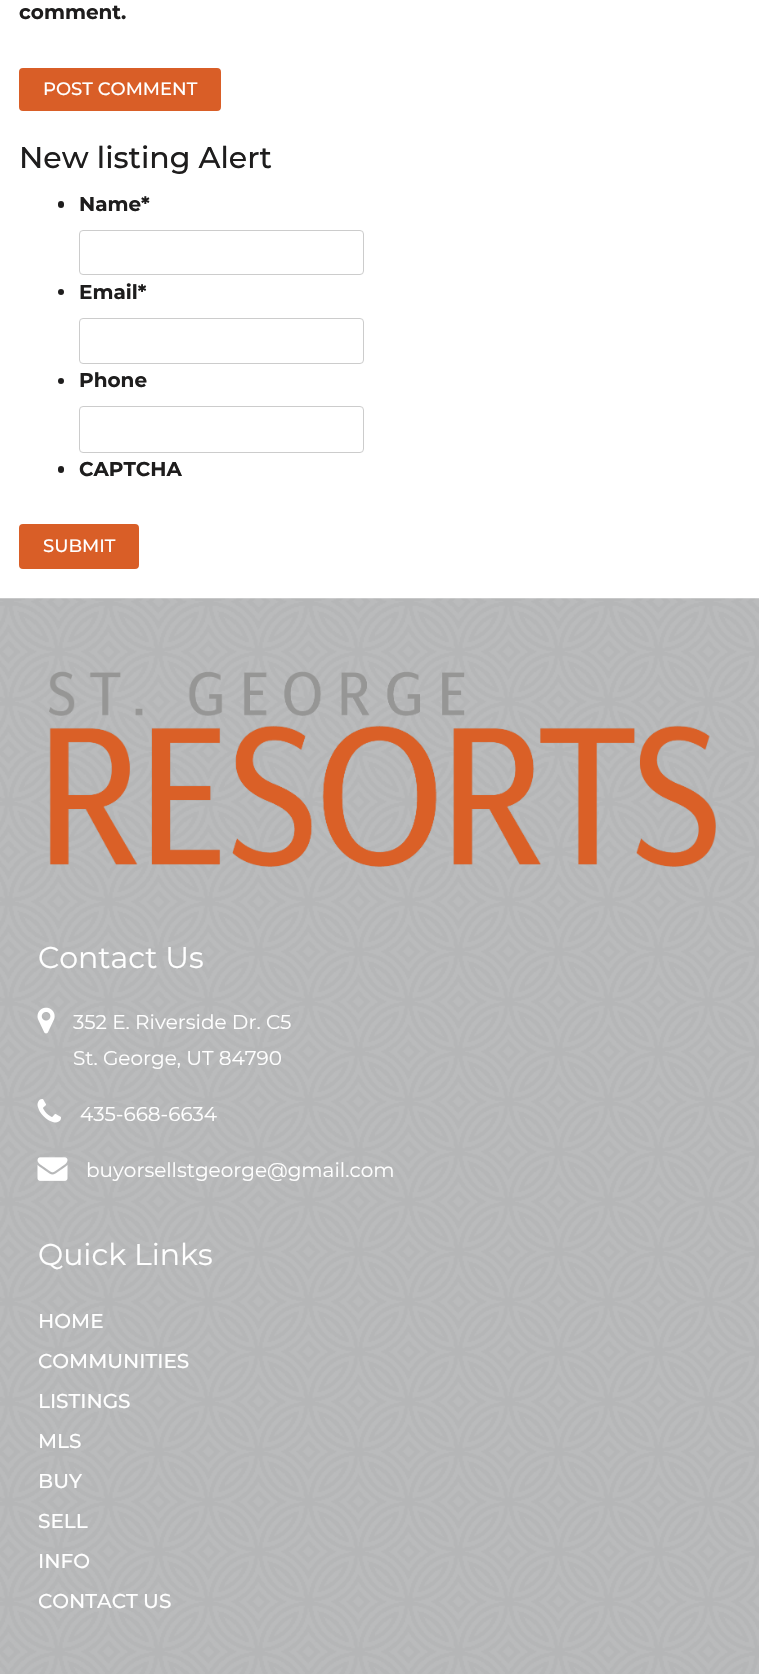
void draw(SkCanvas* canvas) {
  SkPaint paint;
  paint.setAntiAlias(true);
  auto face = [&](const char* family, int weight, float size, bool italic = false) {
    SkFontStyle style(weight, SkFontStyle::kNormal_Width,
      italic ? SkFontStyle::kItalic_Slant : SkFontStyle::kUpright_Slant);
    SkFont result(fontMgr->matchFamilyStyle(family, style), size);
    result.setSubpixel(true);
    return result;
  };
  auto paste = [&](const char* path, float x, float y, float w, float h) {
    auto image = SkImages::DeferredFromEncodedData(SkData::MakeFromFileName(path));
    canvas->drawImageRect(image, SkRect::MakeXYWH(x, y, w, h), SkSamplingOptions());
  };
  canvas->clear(0xffffffff);
  paint.setColor(0xffd95e27);
  canvas->drawRoundRect(SkRect::MakeXYWH(20.5f, 69.5f, 199, 40), 2.5f, 2.5f, paint);
  paint.setStroke(true);
  paint.setStrokeWidth(3);
  canvas->drawRoundRect(SkRect::MakeXYWH(20.5f, 69.5f, 199, 40), 2.5f, 2.5f, paint);
  paint.setStroke(false);
  paint.setColor(0xff1e1d1d);
  canvas->drawRoundRect(SkRect::MakeXYWH(58, 201, 6, 7), 3, 3, paint);
  paint.setStroke(true);
  paint.setStrokeWidth(1);
  paint.setColor(0xffcccccc);
  canvas->drawRoundRect(SkRect::MakeXYWH(79.5f, 230.5f, 284, 44), 3.5f, 3.5f, paint);
  paint.setStroke(false);
  paint.setColor(0xff1e1d1d);
  canvas->drawCircle(61, 292, 3, paint);
  paint.setStroke(true);
  paint.setColor(0xffcccccc);
  canvas->drawRoundRect(SkRect::MakeXYWH(79.5f, 318.5f, 284, 45), 3.5f, 3.5f, paint);
  paint.setStroke(false);
  paint.setColor(0xff1e1d1d);
  canvas->drawCircle(61, 381, 3, paint);
  paint.setStroke(true);
  paint.setColor(0xffcccccc);
  canvas->drawRoundRect(SkRect::MakeXYWH(79.5f, 406.5f, 284, 46), 3.5f, 3.5f, paint);
  paint.setStroke(false);
  paint.setColor(0xff1e1d1d);
  canvas->drawRoundRect(SkRect::MakeXYWH(58, 466, 6, 7), 3, 3, paint);
  paint.setColor(0xffd95e27);
  canvas->drawRoundRect(SkRect::MakeXYWH(20.5f, 525.5f, 117, 42), 2.5f, 2.5f, paint);
  paint.setStroke(true);
  paint.setStrokeWidth(3);
  canvas->drawRoundRect(SkRect::MakeXYWH(20.5f, 525.5f, 117, 42), 2.5f, 2.5f, paint);
  paste("img/1.png", 0, 598, 759, 1076);
  paste("img/2.png", 49, 671, 667, 196);
  paste("img/3.png", 37, 1007, 18, 27);
  paste("img/4.png", 37, 1099, 24, 24);
  paste("img/5.png", 37, 1157, 31, 24);
  auto f0 = face("Montserrat", 700, 20);
  paint.setStroke(false);
  paint.setColor(0xff1e1d1d);
  canvas->drawString("comment.", 19, 19, f0, paint);
  auto f1 = face("Montserrat", 500, 18);
  paint.setColor(0xffffffff);
  canvas->drawString("POST COMMENT", 43, 95, f1, paint);
  auto f2 = face("Montserrat", 500, 30);
  paint.setColor(0xff1e1d1d);
  canvas->drawString("New listing Alert", 19, 168, f2, paint);
  {
    const struct { const char* s; float x, y; } items[] = {
      {"Name*", 79, 211},
      {"Email*", 79, 299},
      {"Phone", 79, 387},
      {"CAPTCHA", 79, 476},
    };
    for (auto [s, x, y] : items) {
      canvas->drawString(s, x, y, f0, paint);
    }
  }
  paint.setColor(0xffffffff);
  canvas->drawString("SUBMIT", 43, 552, f1, paint);
  auto f3 = face("Montserrat", 400, 30);
  canvas->drawString("Contact Us", 38, 968, f3, paint);
  auto f4 = face("Montserrat", 400, 20);
  {
    const struct { const char* s; float x, y; } items[] = {
      {"352 E. Riverside Dr. C5", 73, 1029},
      {"St. George, UT 84790", 73, 1065},
      {"435-668-6634", 80, 1121},
      {"buyorsellstgeorge@gmail.com", 86, 1177},
    };
    for (auto [s, x, y] : items) {
      canvas->drawString(s, x, y, f4, paint);
    }
  }
  canvas->drawString("Quick Links", 38, 1265, f3, paint);
  auto f5 = face("Montserrat", 500, 20);
  {
    const struct { const char* s; float x, y; } items[] = {
      {"HOME", 38, 1328},
      {"COMMUNITIES", 38, 1368},
      {"LISTINGS", 38, 1408},
      {"MLS", 38, 1448},
      {"BUY", 38, 1488},
      {"SELL", 38, 1528},
      {"INFO", 38, 1568},
      {"CONTACT US", 38, 1608},
    };
    for (auto [s, x, y] : items) {
      canvas->drawString(s, x, y, f5, paint);
    }
  }
}
